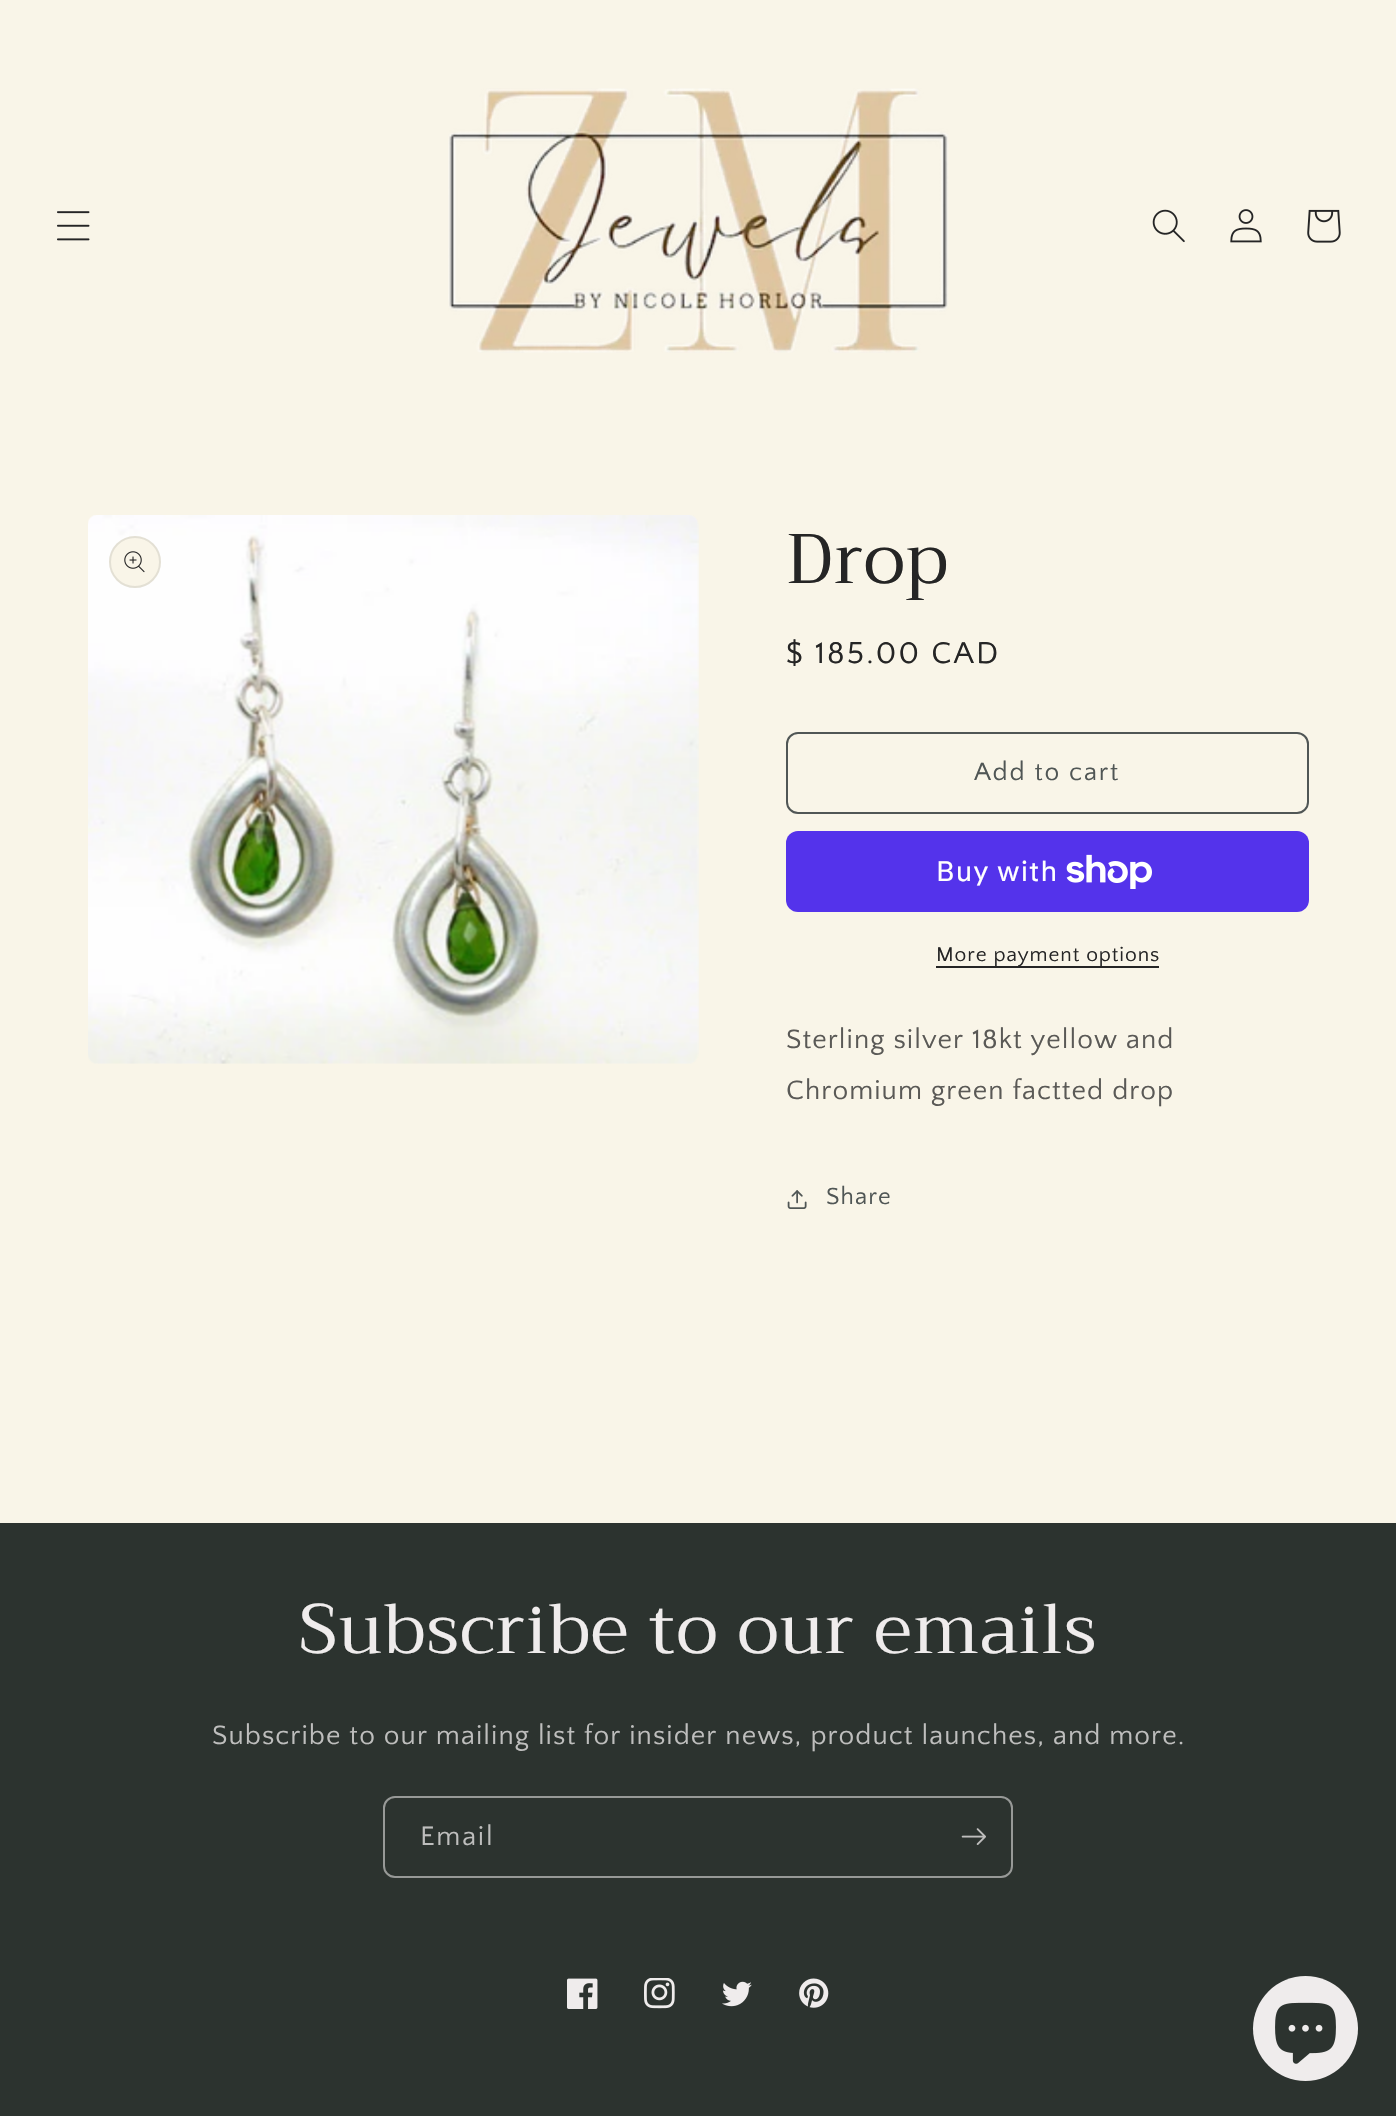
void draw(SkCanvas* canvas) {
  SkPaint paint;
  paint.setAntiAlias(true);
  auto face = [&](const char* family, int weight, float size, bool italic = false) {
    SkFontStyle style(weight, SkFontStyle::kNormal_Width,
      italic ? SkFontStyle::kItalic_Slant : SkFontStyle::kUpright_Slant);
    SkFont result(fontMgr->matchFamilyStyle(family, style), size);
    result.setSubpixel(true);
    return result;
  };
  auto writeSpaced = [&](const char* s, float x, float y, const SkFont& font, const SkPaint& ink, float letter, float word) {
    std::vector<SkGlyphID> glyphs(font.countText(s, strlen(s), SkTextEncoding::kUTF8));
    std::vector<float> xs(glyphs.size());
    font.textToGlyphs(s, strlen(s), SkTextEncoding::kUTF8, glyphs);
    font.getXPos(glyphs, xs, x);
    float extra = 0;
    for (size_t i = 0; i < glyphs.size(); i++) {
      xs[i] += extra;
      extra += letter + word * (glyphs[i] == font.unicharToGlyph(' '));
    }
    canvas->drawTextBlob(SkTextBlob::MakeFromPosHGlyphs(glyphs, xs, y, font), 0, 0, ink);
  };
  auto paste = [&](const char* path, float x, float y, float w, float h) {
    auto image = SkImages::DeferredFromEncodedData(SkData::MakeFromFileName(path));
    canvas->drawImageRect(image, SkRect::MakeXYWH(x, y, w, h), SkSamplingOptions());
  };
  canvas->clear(0xfff9f5e8);
  paste("img/1.png", 57, 211, 33, 30);
  paste("img/2.png", 448, 88, 501, 265);
  paste("img/3.png", 1152, 209, 33, 34);
  paste("img/4.png", 1230, 209, 32, 34);
  paste("img/5.png", 1307, 209, 34, 34);
  paste("img/6.png", 88, 515, 611, 549);
  paint.setColor(0xfff9f5e8);
  canvas->drawCircle(135, 562, 26, paint);
  paint.setStroke(true);
  paint.setStrokeWidth(2);
  paint.setColor(0x1a252525);
  canvas->drawCircle(135, 562, 25, paint);
  paste("img/7.png", 124, 551, 21, 22);
  paint.setColor(0xff505655);
  canvas->drawRoundRect(SkRect::MakeXYWH(787, 733, 521, 80), 11, 11, paint);
  paint.setStroke(false);
  paint.setColor(0xff5433eb);
  canvas->drawRoundRect(SkRect::MakeXYWH(786, 831, 523, 81), 12, 12, paint);
  paste("img/8.png", 1066, 854, 86, 35);
  paint.setColor(0xff252525);
  canvas->drawRect(SkRect::MakeXYWH(936, 966, 223, 2), paint);
  paste("img/9.png", 787, 1190, 20, 19);
  paint.setColor(0xff2c332f);
  canvas->drawRect(SkRect::MakeXYWH(0, 1523, 1396, 593), paint);
  paste("img/10.png", 567, 1978, 31, 31);
  paste("img/11.png", 644, 1978, 31, 31);
  paste("img/12.png", 722, 1981, 30, 26);
  paste("img/13.png", 799, 1978, 30, 30);
  paint.setStroke(true);
  paint.setColor(0xff979997);
  canvas->drawRoundRect(SkRect::MakeXYWH(384, 1797, 628, 80), 11, 11, paint);
  paste("img/14.png", 961, 1828, 25, 17);
  paint.setStroke(false);
  paint.setColor(0xffefecec);
  canvas->drawCircle(1305.5f, 2028.5f, 52.5f, paint);
  paste("img/15.png", 1275, 2002, 61, 62);
  auto f0 = face("Trirong", 400, 70);
  paint.setColor(0xff252525);
  writeSpaced("Drop", 786, 583, f0, paint, 1.05f, 0);
  auto f1 = face("Quattrocento Sans", 400, 31.5f);
  writeSpaced("$ 185.00 CAD", 786, 663, f1, paint, 2.25f, 0);
  auto f2 = face("Quattrocento Sans", 400, 26.25f);
  paint.setColor(0xff505655);
  writeSpaced("Add to cart", 974, 780, f2, paint, 1.75f, 0);
  auto f3 = face("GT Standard", 400, 28);
  paint.setColor(0xffffffff);
  writeSpaced("Buy with", 936, 881, f3, paint, 1.05f, 0);
  auto f4 = face("Quattrocento Sans", 400, 21);
  paint.setColor(0xff252525);
  writeSpaced("More payment options", 936, 961, f4, paint, 0.9f, 0);
  auto f5 = face("Quattrocento Sans", 400, 28);
  paint.setColor(0xff5a5956);
  writeSpaced("Sterling silver 18kt yellow and", 786, 1048, f5, paint, 1.05f, 0);
  writeSpaced("Chromium green factted drop", 786, 1099, f5, paint, 1.05f, 0);
  auto f6 = face("Quattrocento Sans", 400, 24.5f);
  paint.setColor(0xff505655);
  writeSpaced("Share", 826, 1204, f6, paint, 1.05f, 0);
  paint.setColor(0xffefecec);
  writeSpaced("Subscribe to our emails", 299, 1653, f0, paint, 1.05f, 0);
  paint.setColor(0xffbebebd);
  writeSpaced("Subscribe to our mailing list for insider news, product launches, and more.", 212, 1744, f5, paint, 1.05f, 0);
  writeSpaced("Email", 420, 1845, f5, paint, 1.75f, 0);
}
